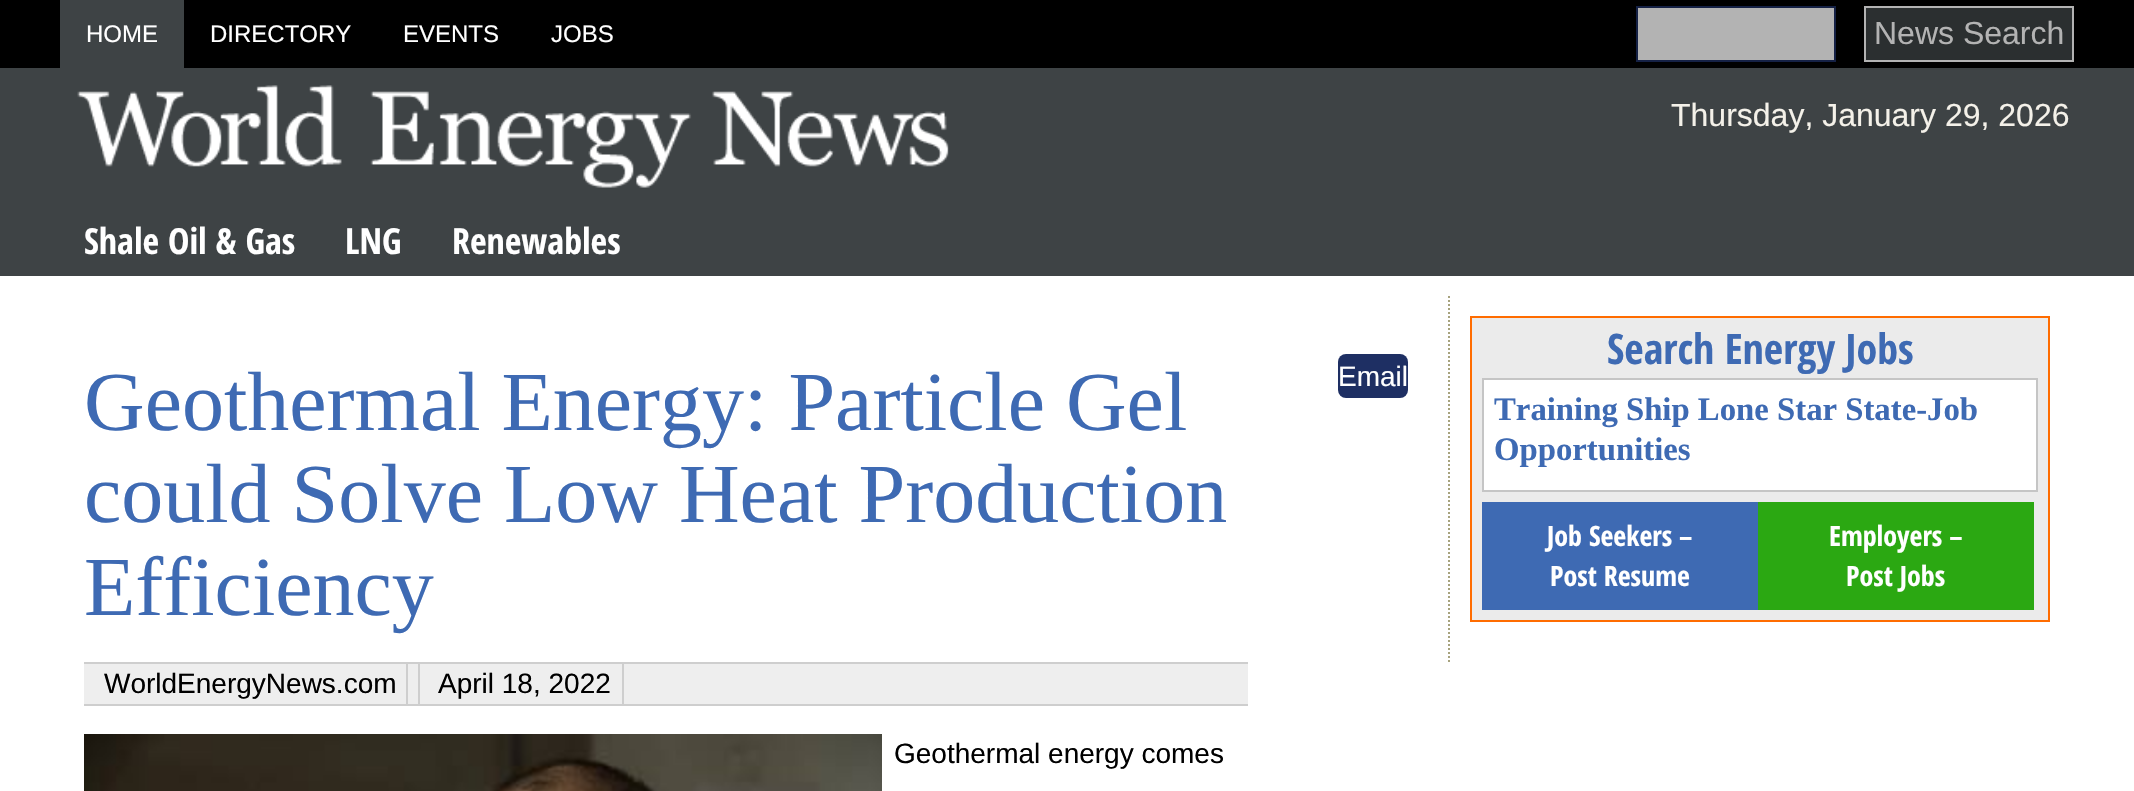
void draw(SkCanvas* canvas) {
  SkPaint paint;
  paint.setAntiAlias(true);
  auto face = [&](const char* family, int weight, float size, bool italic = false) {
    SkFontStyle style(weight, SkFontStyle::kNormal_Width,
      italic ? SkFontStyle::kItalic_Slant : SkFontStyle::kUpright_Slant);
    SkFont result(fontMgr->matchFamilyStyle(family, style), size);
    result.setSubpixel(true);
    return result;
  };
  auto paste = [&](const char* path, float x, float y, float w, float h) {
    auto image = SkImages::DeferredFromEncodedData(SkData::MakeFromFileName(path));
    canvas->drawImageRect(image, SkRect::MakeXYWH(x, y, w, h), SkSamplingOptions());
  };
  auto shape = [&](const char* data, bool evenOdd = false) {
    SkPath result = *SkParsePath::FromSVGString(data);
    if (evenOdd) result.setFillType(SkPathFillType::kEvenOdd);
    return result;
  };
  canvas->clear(0xffffffff);
  {
    const struct { float x, y, w, h; SkColor color; } items[] = {
      {0, 68, 2134, 208, 0xff3e4345},
      {0, 0, 2134, 68, 0xff000000},
      {60, 0, 124, 68, 0xff3e4345},
    };
    for (auto [x, y, w, h, color] : items) {
      paint.setColor(color);
      canvas->drawRect(SkRect::MakeXYWH(x, y, w, h), paint);
    }
  }
  paint.setColor(0xffb3b3b3);
  canvas->drawRect(SkRect::MakeXYWH(1637, 7, 198, 54), paint);
  paint.setStroke(true);
  paint.setStrokeWidth(2);
  paint.setColor(0xff152145);
  canvas->drawRect(SkRect::MakeXYWH(1637, 7, 198, 54), paint);
  paint.setStroke(false);
  paint.setColor(0xff2b2f30);
  canvas->drawRect(SkRect::MakeXYWH(1865, 7, 208, 54), paint);
  paint.setStroke(true);
  paint.setColor(0xffb3b3b3);
  canvas->drawRect(SkRect::MakeXYWH(1865, 7, 208, 54), paint);
  paste("img/1.png", 77, 85, 872, 103);
  paint.setStroke(false);
  paint.setColor(0xff1e2f63);
  canvas->drawRoundRect(SkRect::MakeXYWH(1338, 354, 70, 44), 8, 8, paint);
  {
    const struct { float x, y, w, h; SkColor color; } items[] = {
      {84, 664, 1164, 40, 0xffeeeeee},
      {84, 662, 1164, 2, 0xffcecece},
      {84, 704, 1164, 2, 0xffcecece},
      {418, 664, 2, 40, 0xffcecece},
      {406, 664, 2, 40, 0xffcecece},
      {622, 664, 2, 40, 0xffcecece},
    };
    for (auto [x, y, w, h, color] : items) {
      paint.setColor(color);
      canvas->drawRect(SkRect::MakeXYWH(x, y, w, h), paint);
    }
  }
  paste("img/2.png", 84, 734, 798, 57);
  paint.setStroke(true);
  paint.setColor(0xffa7a37e);
  paint.setPathEffect(SkDashPathEffect::Make({{2, 2}}, 0));
  canvas->drawPath(shape("M1449 296V662"), paint);
  paint.setPathEffect(nullptr);
  paint.setStroke(false);
  paint.setColor(0xffebebeb);
  canvas->drawRect(SkRect::MakeXYWH(1471, 317, 578, 304), paint);
  paint.setStroke(true);
  paint.setColor(0xffff6c00);
  canvas->drawRect(SkRect::MakeXYWH(1471, 317, 578, 304), paint);
  paint.setStroke(false);
  paint.setColor(0xffffffff);
  canvas->drawRect(SkRect::MakeXYWH(1483, 379, 554, 112), paint);
  paint.setStroke(true);
  paint.setColor(0xffc5c5c5);
  canvas->drawRect(SkRect::MakeXYWH(1483, 379, 554, 112), paint);
  paint.setStroke(false);
  paint.setColor(0xff3e6ab3);
  canvas->drawRect(SkRect::MakeXYWH(1482, 502, 276, 108), paint);
  paint.setColor(0xff2ba812);
  canvas->drawRect(SkRect::MakeXYWH(1758, 502, 276, 108), paint);
  auto f0 = face("Liberation Sans", 400, 24);
  paint.setColor(0xffffffff);
  {
    const struct { const char* s; float x, y; } items[] = {
      {"HOME", 86, 42},
      {"DIRECTORY", 210, 42},
      {"EVENTS", 403, 42},
      {"JOBS", 551, 42},
    };
    for (auto [s, x, y] : items) {
      canvas->drawString(s, x, y, f0, paint);
    }
  }
  auto f1 = face("Liberation Sans", 400, 32);
  paint.setColor(0xffb3b3b3);
  canvas->drawString("News Search", 1874, 44, f1, paint);
  paint.setColor(0xfff4f1e9);
  canvas->drawString("Thursday, January 29, 2026", 1671, 126, f1, paint);
  auto f2 = face("Open Sans Condensed", 700, 36);
  paint.setColor(0xffffffff);
  {
    const struct { const char* s; float x, y; } items[] = {
      {"Shale Oil & Gas", 84, 254},
      {"LNG", 345, 254},
      {"Renewables", 452, 254},
    };
    for (auto [s, x, y] : items) {
      canvas->drawString(s, x, y, f2, paint);
    }
  }
  auto f3 = face("Liberation Serif", 400, 84);
  paint.setColor(0xff3e6ab3);
  {
    const struct { const char* s; float x, y; } items[] = {
      {"Geothermal Energy: Particle Gel", 84, 430},
      {"could Solve Low Heat Production", 84, 522},
      {"Efficiency", 84, 615},
    };
    for (auto [s, x, y] : items) {
      canvas->drawString(s, x, y, f3, paint);
    }
  }
  auto f4 = face("Liberation Sans", 400, 28);
  paint.setColor(0xffffffff);
  canvas->drawString("Email", 1338, 386, f4, paint);
  paint.setColor(0xff000000);
  {
    const struct { const char* s; float x, y; } items[] = {
      {"WorldEnergyNews.com", 104, 693},
      {"April 18, 2022", 438, 693},
      {"Geothermal energy comes", 894, 763},
    };
    for (auto [s, x, y] : items) {
      canvas->drawString(s, x, y, f4, paint);
    }
  }
  auto f5 = face("Open Sans Condensed", 700, 42);
  paint.setColor(0xff3e6ab3);
  canvas->drawString("Search Energy Jobs", 1607, 364, f5, paint);
  auto f6 = face("Liberation Serif", 700, 32.75f);
  canvas->drawString("Training Ship Lone Star State-Job", 1494, 420, f6, paint);
  canvas->drawString("Opportunities", 1494, 460, f6, paint);
  auto f7 = face("Open Sans Condensed", 700, 28);
  paint.setColor(0xffffffff);
  {
    const struct { const char* s; float x, y; } items[] = {
      {"Job Seekers –", 1547, 546},
      {"Post Resume", 1550, 586},
      {"Employers –", 1829, 546},
      {"Post Jobs", 1846, 586},
    };
    for (auto [s, x, y] : items) {
      canvas->drawString(s, x, y, f7, paint);
    }
  }
}
